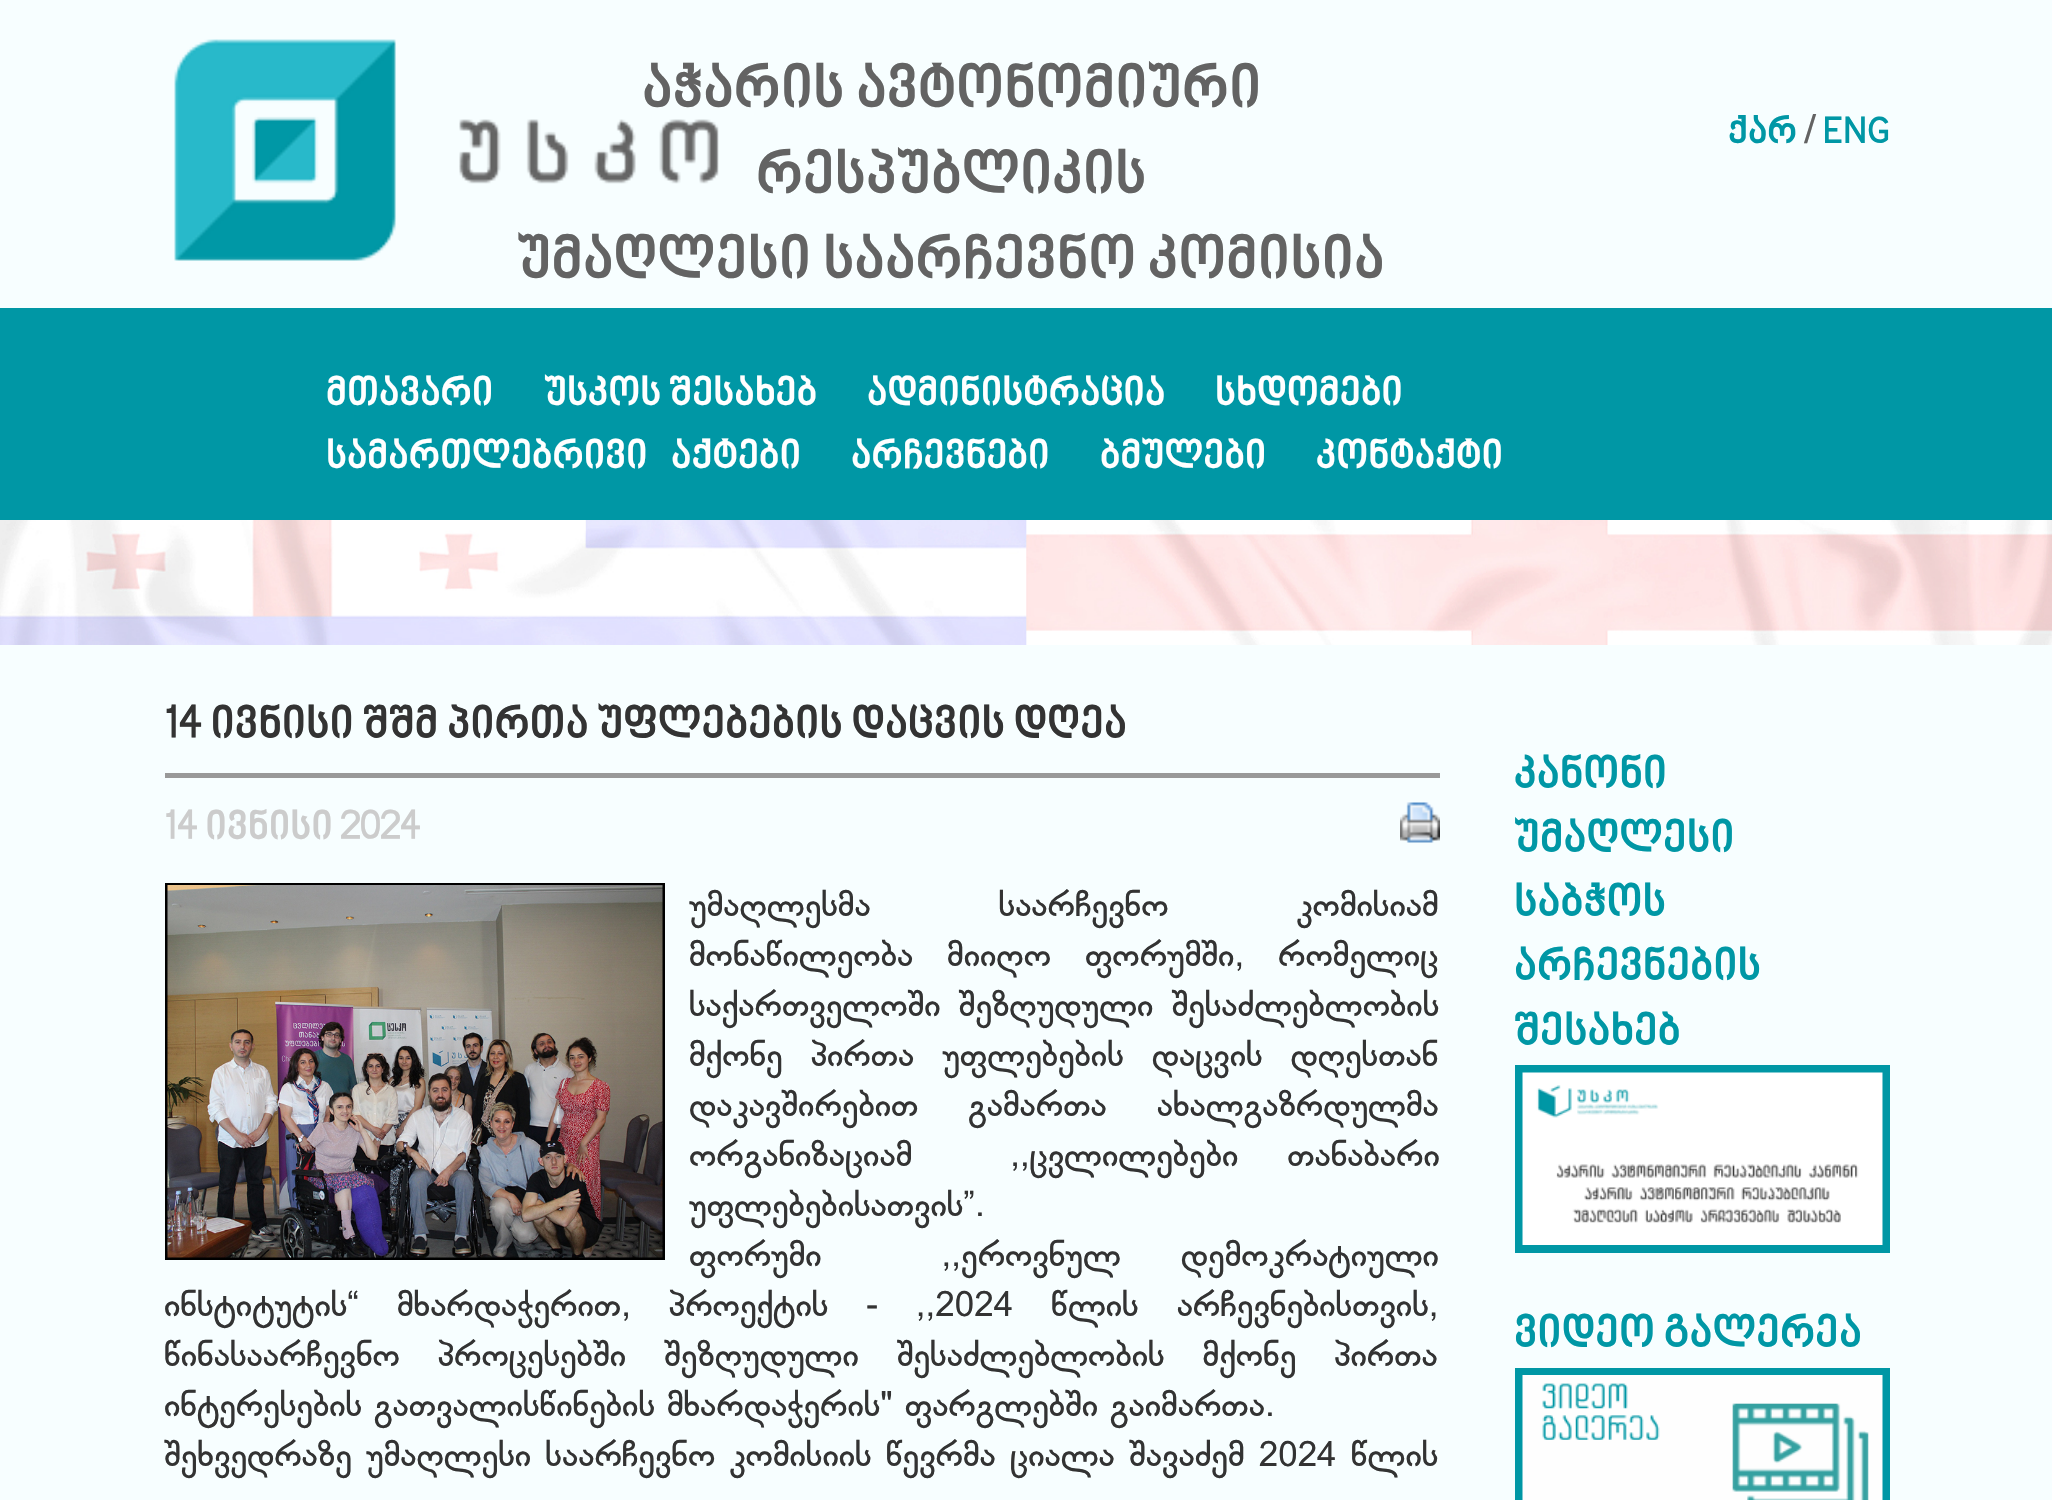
void draw(SkCanvas* canvas) {
  SkPaint paint;
  paint.setAntiAlias(true);
  auto face = [&](const char* family, int weight, float size, bool italic = false) {
    SkFontStyle style(weight, SkFontStyle::kNormal_Width,
      italic ? SkFontStyle::kItalic_Slant : SkFontStyle::kUpright_Slant);
    SkFont result(fontMgr->matchFamilyStyle(family, style), size);
    result.setSubpixel(true);
    return result;
  };
  auto writeSpaced = [&](const char* s, float x, float y, const SkFont& font, const SkPaint& ink, float letter, float word) {
    std::vector<SkGlyphID> glyphs(font.countText(s, strlen(s), SkTextEncoding::kUTF8));
    std::vector<float> xs(glyphs.size());
    font.textToGlyphs(s, strlen(s), SkTextEncoding::kUTF8, glyphs);
    font.getXPos(glyphs, xs, x);
    float extra = 0;
    for (size_t i = 0; i < glyphs.size(); i++) {
      xs[i] += extra;
      extra += letter + word * (glyphs[i] == font.unicharToGlyph(' '));
    }
    canvas->drawTextBlob(SkTextBlob::MakeFromPosHGlyphs(glyphs, xs, y, font), 0, 0, ink);
  };
  auto paste = [&](const char* path, float x, float y, float w, float h) {
    auto image = SkImages::DeferredFromEncodedData(SkData::MakeFromFileName(path));
    canvas->drawImageRect(image, SkRect::MakeXYWH(x, y, w, h), SkSamplingOptions());
  };
  canvas->clear(0xfff7feff);
  paste("img/1.png", 174, 39, 545, 222);
  paint.setColor(0xff0097a5);
  canvas->drawRect(SkRect::MakeXYWH(0, 308, 2052, 212), paint);
  paste("img/2.png", 0, 520, 2052, 125);
  paint.setColor(0xff999999);
  canvas->drawRect(SkRect::MakeXYWH(165, 773, 1275, 5), paint);
  paste("img/3.png", 1400, 802, 40, 41);
  paint.setStroke(true);
  paint.setStrokeWidth(3);
  paint.setColor(0xff000000);
  canvas->drawRect(SkRect::MakeXYWH(166.5f, 884.5f, 497, 374), paint);
  paste("img/4.png", 167, 885, 496, 373);
  paint.setStrokeWidth(8);
  paint.setColor(0xff0097a5);
  canvas->drawRect(SkRect::MakeXYWH(1519, 1069, 367, 180), paint);
  paste("img/5.png", 1522, 1072, 361, 173);
  canvas->drawRect(SkRect::MakeXYWH(1519, 1372, 367, 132), paint);
  paste("img/6.png", 1522, 1375, 361, 125);
  auto f0 = face("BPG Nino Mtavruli", 700, 60, true);
  paint.setStroke(false);
  paint.setColor(0xff636363);
  {
    const struct { const char* s; float x, y; } items[] = {
      {"აჭარის ავტონომიური", 642, 110},
      {"რესპუბლიკის", 756, 196},
      {"უმაღლესი საარჩევნო კომისია", 517, 281},
    };
    for (auto [s, x, y] : items) {
      canvas->drawString(s, x, y, f0, paint);
    }
  }
  auto f1 = face("BPG Nino Mtavruli", 700, 38, true);
  paint.setColor(0xff0097a5);
  canvas->drawString("ქარ", 1728, 145, f1, paint);
  paint.setColor(0xff636363);
  canvas->drawString("/", 1804, 145, f1, paint);
  paint.setColor(0xff0097a5);
  canvas->drawString("ENG", 1823, 145, f1, paint);
  auto f2 = face("BPG Nino Mtavruli", 700, 40, true);
  paint.setColor(0xffffffff);
  {
    const struct { const char* s; float x, y; } items[] = {
      {"მთავარი", 326, 407},
      {"უსკოს შესახებ", 544, 407},
      {"ადმინისტრაცია", 867, 407},
      {"სხდომები", 1215, 407},
      {"სამართლებრივი   აქტები", 326, 470},
      {"არჩევნები", 851, 470},
      {"ბმულები", 1100, 470},
      {"კონტაქტი", 1316, 470},
    };
    for (auto [s, x, y] : items) {
      canvas->drawString(s, x, y, f2, paint);
    }
  }
  auto f3 = face("BPG Nino Mtavruli", 700, 45, true);
  paint.setColor(0xff333333);
  canvas->drawString("14 ივნისი შშმ პირთა უფლებების დაცვის დღეა", 164, 740, f3, paint);
  paint.setColor(0xffcccccc);
  canvas->drawString("14 ივნისი 2024", 164, 841, f2, paint);
  auto f4 = face("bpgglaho", 400, 35);
  paint.setColor(0xff333333);
  writeSpaced("უმაღლესმა საარჩევნო კომისიამ", 689, 916, f4, paint, 0, 116);
  writeSpaced("მონაწილეობა მიიღო ფორუმში, რომელიც", 689, 966, f4, paint, 0, 22);
  writeSpaced("საქართველოში შეზღუდული შესაძლებლობის", 689, 1016, f4, paint, 0, 6);
  writeSpaced("მქონე პირთა უფლებების დაცვის დღესთან", 689, 1066, f4, paint, 0, 16);
  writeSpaced("დაკავშირებით გამართა ახალგაზრდულმა", 689, 1116, f4, paint, 0, 38);
  writeSpaced("ორგანიზაციამ  ,,ცვლილებები თანაბარი", 689, 1166, f4, paint, 0, 37);
  canvas->drawString("უფლებებისათვის”.", 689, 1216, f4, paint);
  writeSpaced("ფორუმი  ,,ეროვნულ დემოკრატიული", 689, 1266, f4, paint, 0, 48);
  writeSpaced("ინსტიტუტის“ მხარდაჭერით, პროექტის - ,,2024 წლის არჩევნებისთვის,", 164, 1316, f4, paint, 0, 26);
  writeSpaced("წინასაარჩევნო პროცესებში შეზღუდული შესაძლებლობის მქონე პირთა", 164, 1366, f4, paint, 0, 26);
  canvas->drawString("ინტერესების გათვალისწინების მხარდაჭერის\" ფარგლებში გაიმართა.", 164, 1416, f4, paint);
  writeSpaced("შეხვედრაზე უმაღლესი საარჩევნო კომისიის წევრმა ციალა შავაძემ 2024 წლის", 164, 1466, f4, paint, 0, 2.25f);
  paint.setColor(0xff0097a5);
  {
    const struct { const char* s; float x, y; } items[] = {
      {"კანონი", 1514, 790},
      {"უმაღლესი", 1514, 854},
      {"საბჭოს", 1514, 918},
      {"არჩევნების", 1514, 982},
      {"შესახებ", 1514, 1047},
      {"ვიდეო გალერეა", 1514, 1349},
    };
    for (auto [s, x, y] : items) {
      canvas->drawString(s, x, y, f3, paint);
    }
  }
}
